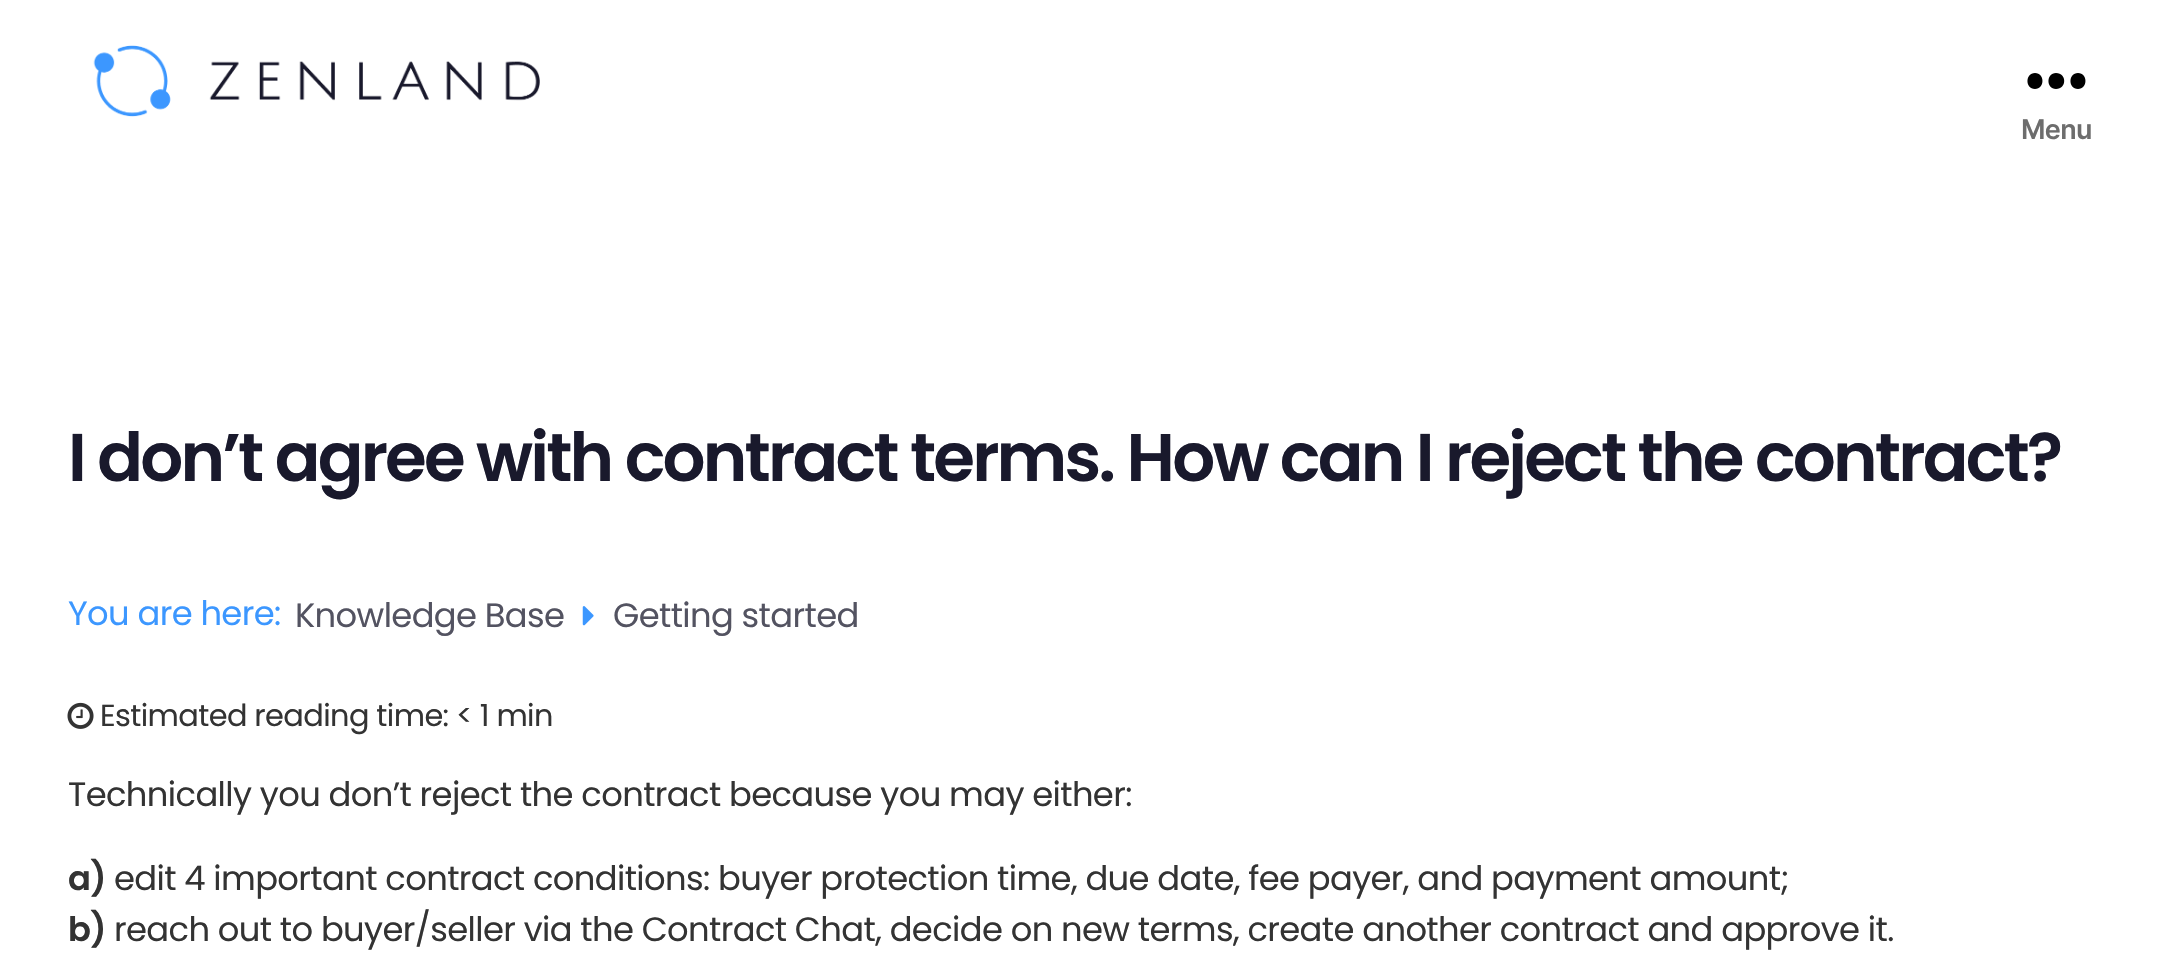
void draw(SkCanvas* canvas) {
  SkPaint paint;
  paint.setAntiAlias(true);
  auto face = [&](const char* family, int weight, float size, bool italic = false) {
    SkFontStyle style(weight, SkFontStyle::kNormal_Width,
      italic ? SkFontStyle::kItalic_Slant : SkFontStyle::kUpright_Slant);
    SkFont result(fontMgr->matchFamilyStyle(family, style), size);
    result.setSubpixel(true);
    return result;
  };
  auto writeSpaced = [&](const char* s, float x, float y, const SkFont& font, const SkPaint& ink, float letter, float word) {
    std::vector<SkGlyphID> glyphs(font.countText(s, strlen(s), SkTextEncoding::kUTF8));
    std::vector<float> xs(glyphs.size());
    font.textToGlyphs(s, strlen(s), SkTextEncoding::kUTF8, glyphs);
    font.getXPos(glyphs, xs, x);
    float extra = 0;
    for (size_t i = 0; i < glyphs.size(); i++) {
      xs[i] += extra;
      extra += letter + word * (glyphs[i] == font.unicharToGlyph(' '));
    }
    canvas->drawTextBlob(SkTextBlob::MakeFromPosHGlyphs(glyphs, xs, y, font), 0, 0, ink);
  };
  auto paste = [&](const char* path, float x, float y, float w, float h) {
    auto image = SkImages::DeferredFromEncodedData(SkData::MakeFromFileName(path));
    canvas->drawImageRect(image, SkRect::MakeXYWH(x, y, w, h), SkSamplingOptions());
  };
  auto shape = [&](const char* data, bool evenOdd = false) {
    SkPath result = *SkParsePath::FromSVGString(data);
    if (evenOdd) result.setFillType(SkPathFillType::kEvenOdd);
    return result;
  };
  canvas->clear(0xffffffff);
  paste("img/1.png", 93, 45, 447, 72);
  paint.setColor(0xff000000);
  canvas->drawPath(shape("M2035 89C2025 89 2025 73 2035 73C2045 73 2045 89 2035 89ZM2056 89C2046 89 2046 73 2056 73C2067 73 2067 89 2056 89ZM2078 89C2068 89 2068 73 2078 73C2088 73 2088 89 2078 89Z", true), paint);
  paste("img/2.png", 582, 606, 12, 20);
  paste("img/3.png", 67, 702, 27, 27);
  auto f0 = face("Inter", 600, 27);
  paint.setColor(0xff6d6d6d);
  writeSpaced("Menu", 2021, 139, f0, paint, -0.61f, 0);
  auto f1 = face("Poppins", 600, 67.5f);
  paint.setColor(0xff19192c);
  writeSpaced("I don’t agree with contract terms. How can I reject the contract?", 68, 481, f1, paint, -2.8f, 0);
  auto f2 = face("Poppins", 400, 33.75f);
  paint.setColor(0xff3c97ff);
  writeSpaced("You are here:", 68, 625, f2, paint, -0.61f, 0);
  paint.setColor(0xff535361);
  writeSpaced("Knowledge Base", 295, 627, f2, paint, -0.61f, 0);
  writeSpaced("Getting started", 613, 627, f2, paint, -0.61f, 0);
  auto f3 = face("Poppins", 400, 30.4f);
  paint.setColor(0xff333333);
  writeSpaced("Estimated reading time: < 1 min", 100, 726, f3, paint, -0.61f, 0);
  writeSpaced("Technically you don’t reject the contract because you may either:", 68, 806, f2, paint, -0.61f, 0);
  auto f4 = face("Poppins", 600, 33.75f);
  writeSpaced("a)", 68, 890, f4, paint, -0.61f, 0);
  writeSpaced("edit 4 important contract conditions: buyer protection time, due date, fee payer, and payment amount;", 114, 890, f2, paint, -0.61f, 0);
  writeSpaced("b)", 68, 941, f4, paint, -0.61f, 0);
  writeSpaced("reach out to buyer/seller via the Contract Chat, decide on new terms, create another contract and approve it.", 114, 941, f2, paint, -0.61f, 0);
}
